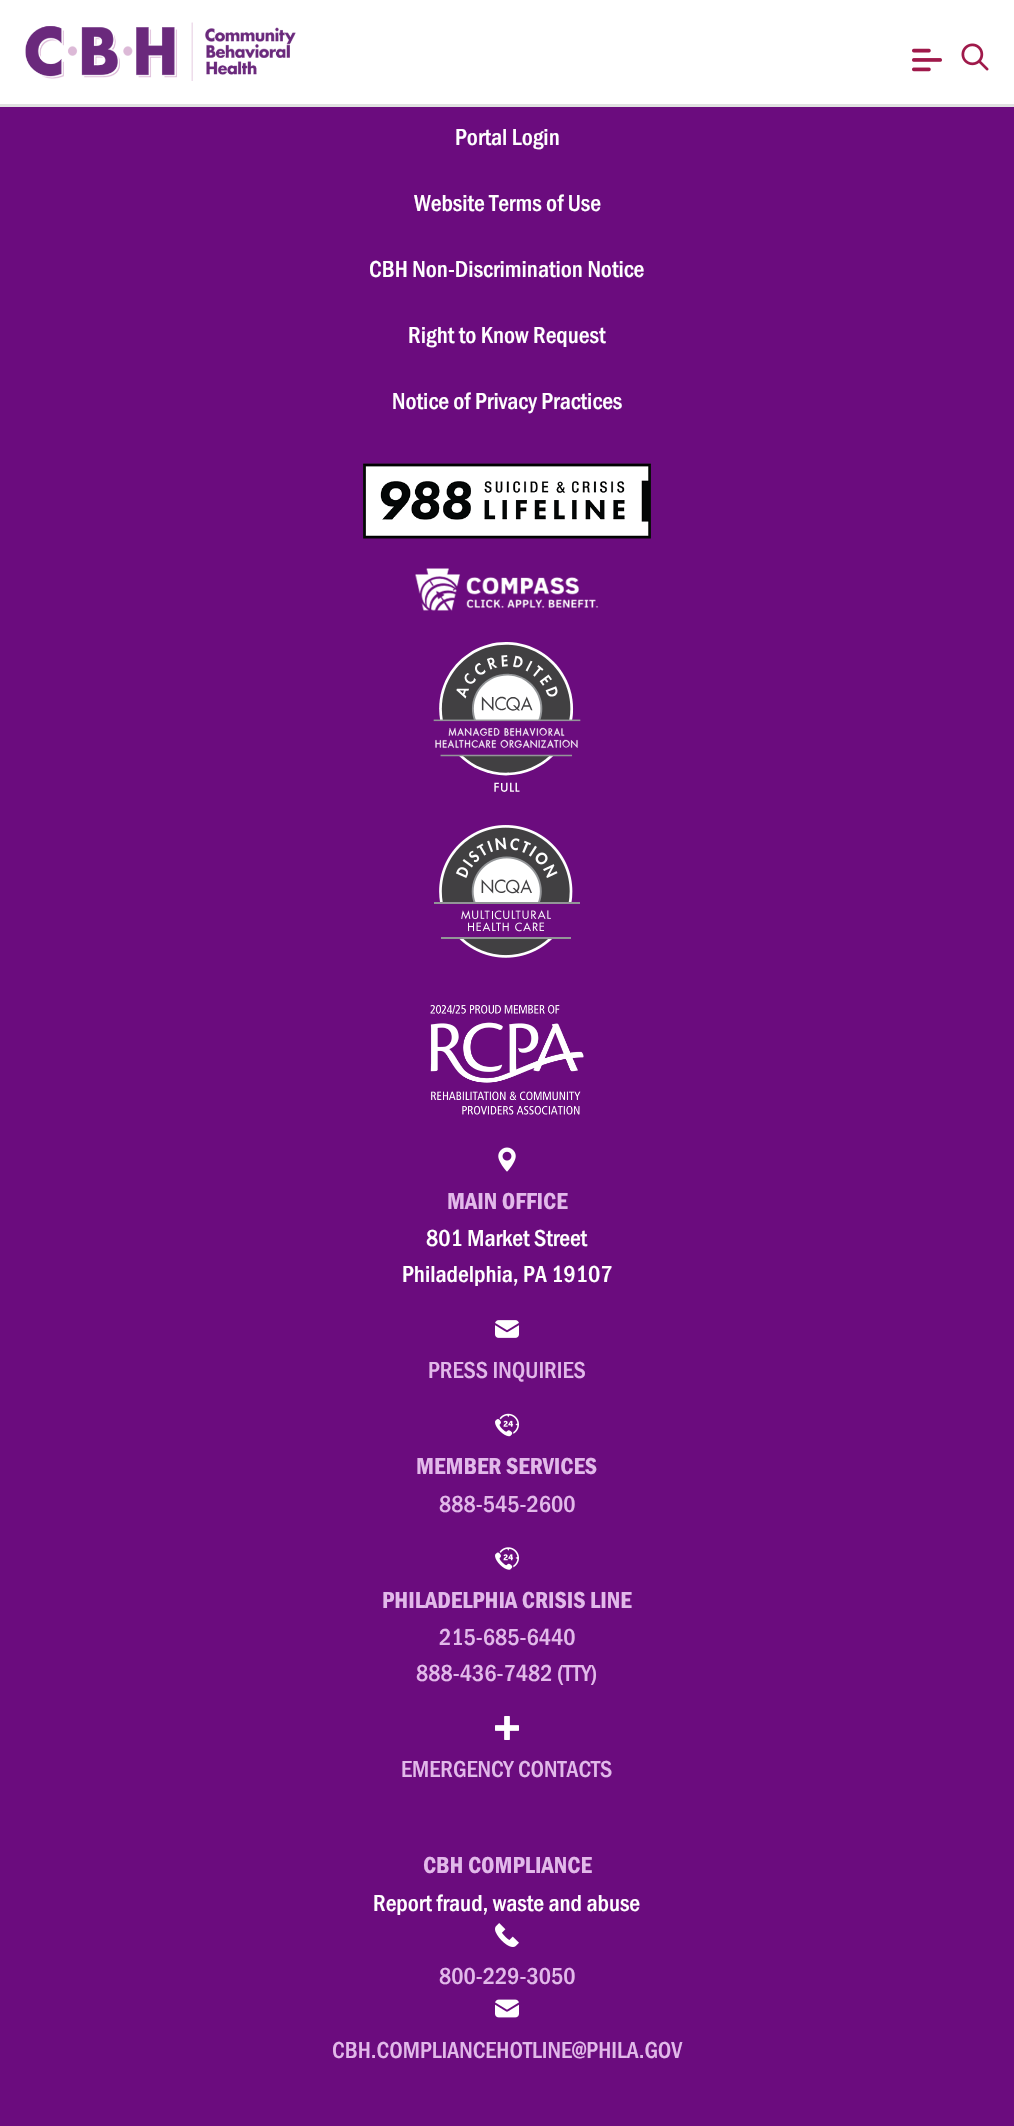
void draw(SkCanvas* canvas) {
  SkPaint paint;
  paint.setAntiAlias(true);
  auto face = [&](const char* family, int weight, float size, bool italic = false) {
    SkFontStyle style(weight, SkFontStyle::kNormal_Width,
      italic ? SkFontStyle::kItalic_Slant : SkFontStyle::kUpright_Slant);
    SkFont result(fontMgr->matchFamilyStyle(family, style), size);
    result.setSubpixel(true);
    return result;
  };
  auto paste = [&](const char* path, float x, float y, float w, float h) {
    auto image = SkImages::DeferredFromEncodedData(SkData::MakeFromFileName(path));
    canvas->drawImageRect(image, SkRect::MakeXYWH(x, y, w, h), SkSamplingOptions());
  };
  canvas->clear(0xff6b0c7e);
  paint.setColor(0xffffffff);
  canvas->drawRect(SkRect::MakeXYWH(0, 0, 1014, 104), paint);
  paint.setColor(0xffe1e1e1);
  canvas->drawRect(SkRect::MakeXYWH(0, 104, 1014, 3), paint);
  paste("img/1.png", 25, 22, 271, 59);
  paste("img/2.png", 912, 48, 30, 24);
  paste("img/3.png", 961, 43, 28, 28);
  paste("img/4.png", 363, 463, 288, 76);
  paste("img/5.png", 415, 568, 184, 43);
  paste("img/6.png", 433, 642, 148, 150);
  paste("img/7.png", 434, 825, 146, 133);
  paste("img/8.png", 430, 1005, 154, 110);
  paste("img/9.png", 498, 1147, 18, 25);
  paste("img/10.png", 495, 1320, 24, 18);
  paste("img/11.png", 495, 1413, 24, 24);
  paste("img/12.png", 495, 1547, 24, 23);
  paste("img/13.png", 495, 1716, 24, 24);
  paste("img/14.png", 495, 1923, 24, 24);
  paste("img/15.png", 495, 1999, 24, 19);
  auto f0 = face("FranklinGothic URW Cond", 500, 24);
  paint.setColor(0xffffffff);
  {
    const struct { const char* s; float x, y; } items[] = {
      {"Portal Login", 455, 145},
      {"Website Terms of Use", 414, 211},
      {"CBH Non-Discrimination Notice", 369, 277},
      {"Right to Know Request", 408, 343},
      {"Notice of Privacy Practices", 392, 409},
    };
    for (auto [s, x, y] : items) {
      canvas->drawString(s, x, y, f0, paint);
    }
  }
  auto f1 = face("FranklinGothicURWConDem", 400, 24);
  paint.setColor(0xffe2b9ea);
  canvas->drawString("MAIN OFFICE", 447, 1209, f1, paint);
  paint.setColor(0xffffffff);
  canvas->drawString("801 Market Street", 426, 1246, f0, paint);
  canvas->drawString("Philadelphia, PA 19107", 402, 1282, f0, paint);
  paint.setColor(0xffe2b9ea);
  canvas->drawString("PRESS INQUIRIES", 428, 1378, f0, paint);
  canvas->drawString("MEMBER SERVICES", 416, 1474, f1, paint);
  canvas->drawString("888-545-2600", 439, 1512, f0, paint);
  canvas->drawString("PHILADELPHIA CRISIS LINE", 382, 1608, f1, paint);
  {
    const struct { const char* s; float x, y; } items[] = {
      {"215-685-6440", 439, 1645},
      {"888-436-7482 (TTY)", 416, 1681},
      {"EMERGENCY CONTACTS", 401, 1777},
    };
    for (auto [s, x, y] : items) {
      canvas->drawString(s, x, y, f0, paint);
    }
  }
  canvas->drawString("CBH COMPLIANCE", 423, 1873, f1, paint);
  paint.setColor(0xffffffff);
  canvas->drawString("Report fraud, waste and abuse", 373, 1911, f0, paint);
  paint.setColor(0xffe2b9ea);
  canvas->drawString("800-229-3050", 439, 1984, f0, paint);
  canvas->drawString("CBH.COMPLIANCEHOTLINE@PHILA.GOV", 332, 2058, f0, paint);
}
